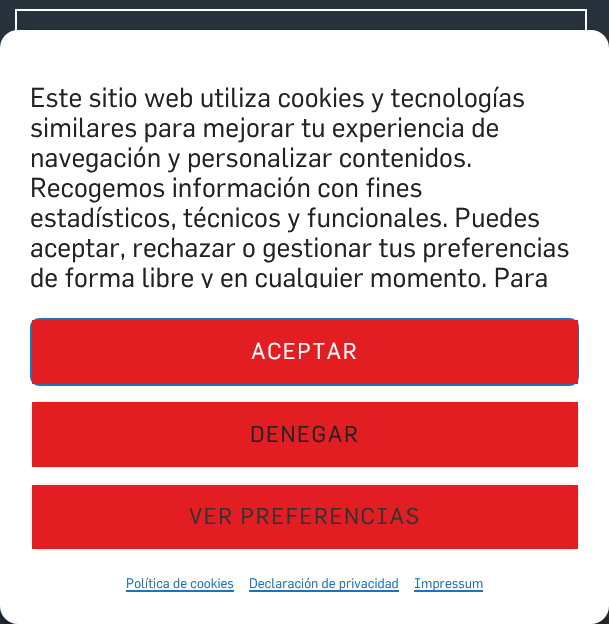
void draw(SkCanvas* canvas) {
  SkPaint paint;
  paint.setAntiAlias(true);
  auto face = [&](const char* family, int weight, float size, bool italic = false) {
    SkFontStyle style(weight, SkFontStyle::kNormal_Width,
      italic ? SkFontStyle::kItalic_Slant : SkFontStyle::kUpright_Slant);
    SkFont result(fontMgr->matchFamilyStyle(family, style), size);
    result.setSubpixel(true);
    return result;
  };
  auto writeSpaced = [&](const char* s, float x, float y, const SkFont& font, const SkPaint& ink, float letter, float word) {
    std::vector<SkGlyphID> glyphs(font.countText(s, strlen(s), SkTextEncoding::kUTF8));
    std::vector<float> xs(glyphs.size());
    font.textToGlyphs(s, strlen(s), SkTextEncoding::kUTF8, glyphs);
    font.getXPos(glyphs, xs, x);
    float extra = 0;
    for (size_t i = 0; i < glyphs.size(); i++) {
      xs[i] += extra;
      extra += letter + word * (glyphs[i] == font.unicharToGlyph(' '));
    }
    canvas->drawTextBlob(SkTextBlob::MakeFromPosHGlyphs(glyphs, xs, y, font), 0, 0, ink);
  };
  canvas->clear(0xff28323c);
  paint.setStroke(true);
  paint.setStrokeWidth(2);
  paint.setColor(0xffffffff);
  canvas->drawRect(SkRect::MakeXYWH(16, 10, 570, 88), paint);
  paint.setStroke(false);
  paint.setColor(0x3b000000);
  paint.setMaskFilter(SkMaskFilter::MakeBlur(kNormal_SkBlurStyle, 4.5f));
  canvas->drawRoundRect(SkRect::MakeXYWH(0, 39, 609, 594), 18, 18, paint);
  paint.setMaskFilter(nullptr);
  paint.setColor(0x30000000);
  paint.setMaskFilter(SkMaskFilter::MakeBlur(kNormal_SkBlurStyle, 15));
  canvas->drawRoundRect(SkRect::MakeXYWH(0, 45, 609, 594), 18, 18, paint);
  paint.setMaskFilter(nullptr);
  paint.setColor(0xffffffff);
  canvas->drawRoundRect(SkRect::MakeXYWH(0, 30, 609, 594), 18, 18, paint);
  paint.setStroke(true);
  paint.setColor(0xff1e73be);
  canvas->drawRoundRect(SkRect::MakeXYWH(31, 319, 547, 66), 8, 8, paint);
  paint.setStroke(false);
  paint.setColor(0xffe21e22);
  canvas->drawRect(SkRect::MakeXYWH(32, 320, 546, 64), paint);
  paint.setStroke(true);
  paint.setColor(0xfff2f2f2);
  canvas->drawRoundRect(SkRect::MakeXYWH(31, 402, 547, 65), 8, 8, paint);
  paint.setStroke(false);
  paint.setColor(0xffe21e22);
  canvas->drawRect(SkRect::MakeXYWH(32, 402, 546, 65), paint);
  paint.setStroke(true);
  paint.setColor(0xfff2f2f2);
  canvas->drawRoundRect(SkRect::MakeXYWH(31, 484, 547, 66), 8, 8, paint);
  paint.setStroke(false);
  {
    const struct { float x, y, w, h; SkColor color; } items[] = {
      {32, 485, 546, 64, 0xffe21e22},
      {126, 590, 108, 2, 0xff1e73be},
      {249, 590, 150, 2, 0xff1e73be},
      {414, 590, 69, 2, 0xff1e73be},
    };
    for (auto [x, y, w, h, color] : items) {
      paint.setColor(color);
      canvas->drawRect(SkRect::MakeXYWH(x, y, w, h), paint);
    }
  }
  auto f0 = face("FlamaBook", 400, 27);
  paint.setColor(0xff222222);
  {
    const struct { const char* s; float x, y; } items[] = {
      {"Este sitio web utiliza cookies y tecnologías", 30, 107},
      {"similares para mejorar tu experiencia de", 30, 137},
      {"navegación y personalizar contenidos.", 30, 167},
      {"Recogemos información con fines", 30, 197},
      {"estadísticos, técnicos y funcionales. Puedes", 30, 227},
      {"aceptar, rechazar o gestionar tus preferencias", 30, 257},
    };
    for (auto [s, x, y] : items) {
      canvas->drawString(s, x, y, f0, paint);
    }
  }
  canvas->save();
  canvas->clipRect(SkRect::MakeXYWH(30, 83, 549, 205));
  canvas->drawString("de forma libre y en cualquier momento. Para", 30, 287, f0, paint);
  canvas->restore();
  auto f1 = face("FlamaBook", 400, 22.5f);
  paint.setColor(0xffffffff);
  writeSpaced("ACEPTAR", 251, 359, f1, paint, 1.5f, 0);
  paint.setColor(0xff222222);
  writeSpaced("DENEGAR", 250, 442, f1, paint, 1.5f, 0);
  paint.setColor(0xff333333);
  writeSpaced("VER PREFERENCIAS", 189, 524, f1, paint, 1.5f, 0);
  auto f2 = face("FlamaBook", 400, 13.5f);
  paint.setColor(0xff1e73be);
  {
    const struct { const char* s; float x, y; } items[] = {
      {"Política de cookies", 126, 588},
      {"Declaración de privacidad", 249, 588},
      {"Impressum", 414, 588},
    };
    for (auto [s, x, y] : items) {
      canvas->drawString(s, x, y, f2, paint);
    }
  }
}
